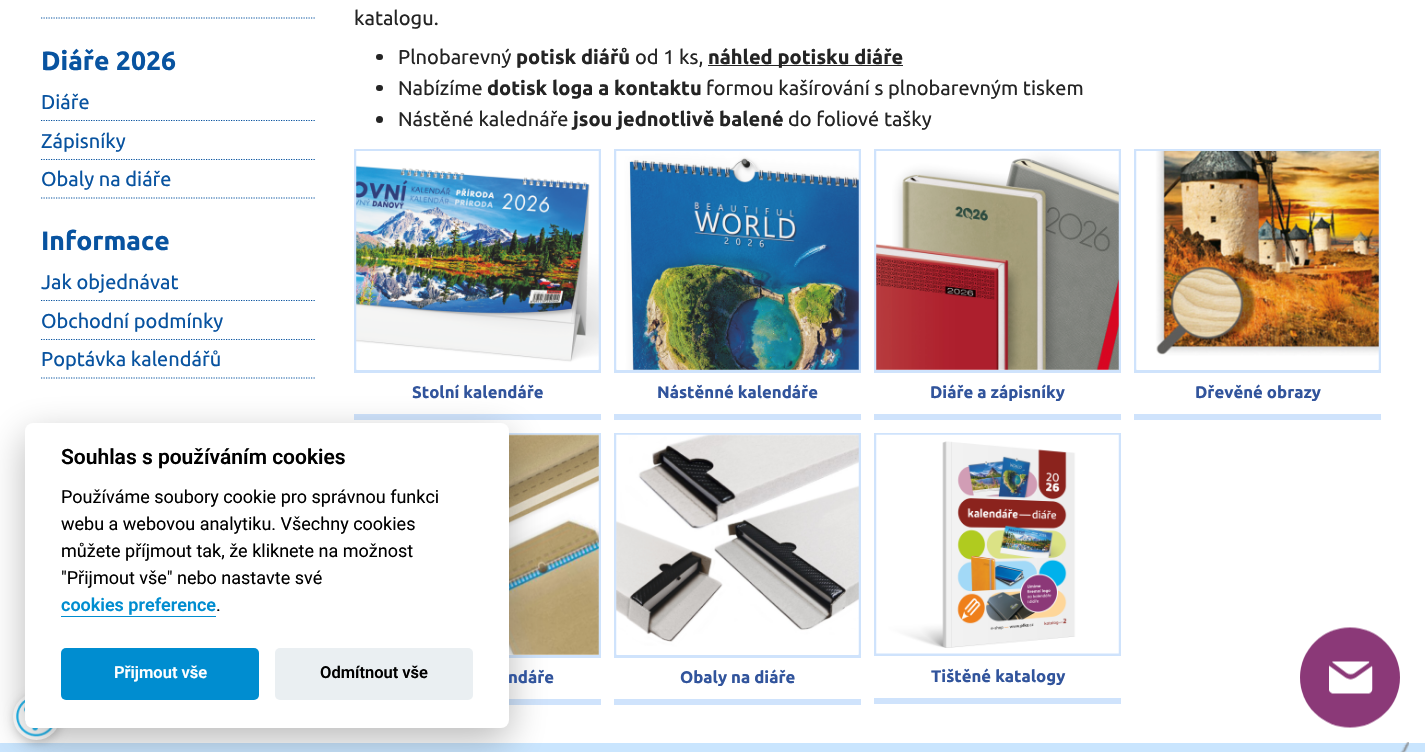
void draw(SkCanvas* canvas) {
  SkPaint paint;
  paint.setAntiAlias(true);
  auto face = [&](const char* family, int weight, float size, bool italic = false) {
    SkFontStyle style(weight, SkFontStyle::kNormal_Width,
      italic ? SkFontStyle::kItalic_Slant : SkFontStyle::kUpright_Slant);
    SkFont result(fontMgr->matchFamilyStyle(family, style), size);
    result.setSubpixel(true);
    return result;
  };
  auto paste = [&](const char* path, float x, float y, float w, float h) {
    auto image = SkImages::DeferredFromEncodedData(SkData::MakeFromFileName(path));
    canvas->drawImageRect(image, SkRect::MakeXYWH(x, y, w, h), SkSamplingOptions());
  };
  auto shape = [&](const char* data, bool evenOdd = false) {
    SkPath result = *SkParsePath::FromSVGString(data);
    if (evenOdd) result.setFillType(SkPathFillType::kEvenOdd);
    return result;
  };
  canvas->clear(0xffffffff);
  paint.setStroke(true);
  paint.setStrokeWidth(1.2f);
  paint.setColor(0xff0853a0);
  paint.setPathEffect(SkDashPathEffect::Make({{1.25f, 1.25f}}, 0));
  canvas->drawPath(shape("M41 18H316"), paint);
  paint.setPathEffect(nullptr);
  paint.setPathEffect(SkDashPathEffect::Make({{1.25f, 1.25f}}, 0));
  canvas->drawPath(shape("M41 120.5H316"), paint);
  paint.setPathEffect(nullptr);
  paint.setPathEffect(SkDashPathEffect::Make({{1.25f, 1.25f}}, 0));
  canvas->drawPath(shape("M41 159.5H316"), paint);
  paint.setPathEffect(nullptr);
  paint.setPathEffect(SkDashPathEffect::Make({{1.25f, 1.25f}}, 0));
  canvas->drawPath(shape("M41 198H316"), paint);
  paint.setPathEffect(nullptr);
  paint.setPathEffect(SkDashPathEffect::Make({{1.25f, 1.25f}}, 0));
  canvas->drawPath(shape("M41 300.5H316"), paint);
  paint.setPathEffect(nullptr);
  paint.setPathEffect(SkDashPathEffect::Make({{1.25f, 1.25f}}, 0));
  canvas->drawPath(shape("M41 339.5H316"), paint);
  paint.setPathEffect(nullptr);
  paint.setPathEffect(SkDashPathEffect::Make({{1.25f, 1.25f}}, 0));
  canvas->drawPath(shape("M41 378H316"), paint);
  paint.setPathEffect(nullptr);
  paint.setStroke(false);
  paint.setColor(0xff242424);
  canvas->drawRoundRect(SkRect::MakeXYWH(376, 54, 7, 6), 3, 3, paint);
  canvas->drawRect(SkRect::MakeXYWH(708, 65, 195, 1), paint);
  canvas->drawRoundRect(SkRect::MakeXYWH(376, 85, 7, 6), 3, 3, paint);
  canvas->drawCircle(379.5f, 119.5f, 3.5f, paint);
  paint.setColor(0xffcfe3fc);
  canvas->drawRect(SkRect::MakeXYWH(354, 414, 247, 6), paint);
  paint.setStroke(true);
  paint.setStrokeWidth(3);
  canvas->drawRect(SkRect::MakeXYWH(355.5f, 150.5f, 244, 221), paint);
  paste("img/1.png", 356, 151, 243, 219);
  paint.setStroke(false);
  canvas->drawRect(SkRect::MakeXYWH(614, 414, 247, 6), paint);
  paint.setStroke(true);
  canvas->drawRect(SkRect::MakeXYWH(615.5f, 150.5f, 244, 221), paint);
  paste("img/2.png", 616, 151, 243, 219);
  paint.setStroke(false);
  canvas->drawRect(SkRect::MakeXYWH(874, 414, 247, 6), paint);
  paint.setStroke(true);
  canvas->drawRect(SkRect::MakeXYWH(875.5f, 150.5f, 244, 221), paint);
  paste("img/3.png", 876, 151, 243, 219);
  paint.setStroke(false);
  canvas->drawRect(SkRect::MakeXYWH(1134, 414, 247, 6), paint);
  paint.setStroke(true);
  canvas->drawRect(SkRect::MakeXYWH(1135.5f, 150.5f, 244, 221), paint);
  paste("img/4.png", 1136, 151, 243, 219);
  paint.setStroke(false);
  canvas->drawRect(SkRect::MakeXYWH(509, 699, 92, 6), paint);
  paint.setStroke(true);
  canvas->drawRect(SkRect::MakeXYWH(355.5f, 434.5f, 244, 222), paint);
  paste("img/5.png", 509, 434, 90, 221);
  paint.setStroke(false);
  canvas->drawRect(SkRect::MakeXYWH(614, 699, 247, 6), paint);
  paint.setStroke(true);
  canvas->drawRect(SkRect::MakeXYWH(615.5f, 434.5f, 244, 222), paint);
  paste("img/6.png", 616, 434, 243, 221);
  paint.setStroke(false);
  canvas->drawRect(SkRect::MakeXYWH(874, 698, 247, 6), paint);
  paint.setStroke(true);
  canvas->drawRect(SkRect::MakeXYWH(875.5f, 434.5f, 244, 220), paint);
  paste("img/7.png", 876, 434, 243, 220);
  paint.setStroke(false);
  paint.setColor(0xffc9e5fe);
  canvas->drawRect(SkRect::MakeXYWH(0, 743, 1425, 9), paint);
  paste("img/8.png", 1400, 742, 9, 10);
  paint.setColor(0x33000000);
  paint.setMaskFilter(SkMaskFilter::MakeBlur(kNormal_SkBlurStyle, 5));
  canvas->drawRoundRect(SkRect::MakeXYWH(14, 695, 47, 48), 23.5f, 23.5f, paint);
  paint.setMaskFilter(nullptr);
  paint.setColor(0xffffffff);
  canvas->drawCircle(36.5f, 716.5f, 23.5f, paint);
  paste("img/9.png", 16, 699, 37, 38);
  paint.setColor(0x47020203);
  paint.setMaskFilter(SkMaskFilter::MakeBlur(kNormal_SkBlurStyle, 19));
  canvas->drawRoundRect(SkRect::MakeXYWH(25, 435, 484, 305), 8, 8, paint);
  paint.setMaskFilter(nullptr);
  paint.setColor(0xffffffff);
  canvas->drawRoundRect(SkRect::MakeXYWH(25, 423, 484, 305), 8, 8, paint);
  paint.setColor(0xff008dd0);
  canvas->drawRect(SkRect::MakeXYWH(61, 616, 155, 1), paint);
  canvas->drawRoundRect(SkRect::MakeXYWH(61, 648, 198, 52), 5, 5, paint);
  paint.setColor(0xffeaeff2);
  canvas->drawRoundRect(SkRect::MakeXYWH(275, 648, 198, 52), 5, 5, paint);
  paste("img/10.png", 1300, 627, 100, 101);
  auto f0 = face("Ubuntu", 700, 26.5f);
  paint.setColor(0xff0853a0);
  canvas->drawString("Diáře 2026", 41, 70, f0, paint);
  auto f1 = face("Ubuntu", 400, 20);
  {
    const struct { const char* s; float x, y; } items[] = {
      {"Diáře", 41, 109},
      {"Zápisníky", 41, 148},
      {"Obaly na diáře", 41, 186},
    };
    for (auto [s, x, y] : items) {
      canvas->drawString(s, x, y, f1, paint);
    }
  }
  canvas->drawString("Informace", 41, 250, f0, paint);
  {
    const struct { const char* s; float x, y; } items[] = {
      {"Jak objednávat", 41, 289},
      {"Obchodní podmínky", 41, 328},
      {"Poptávka kalendářů", 41, 366},
    };
    for (auto [s, x, y] : items) {
      canvas->drawString(s, x, y, f1, paint);
    }
  }
  paint.setColor(0xff242424);
  canvas->drawString("katalogu.", 354, 25, f1, paint);
  canvas->drawString("Plnobarevný", 398, 64, f1, paint);
  auto f2 = face("Ubuntu", 700, 20);
  canvas->drawString("potisk diářů", 516, 64, f2, paint);
  canvas->drawString("od 1 ks,", 635, 64, f1, paint);
  canvas->drawString("náhled potisku diáře", 708, 64, f2, paint);
  canvas->drawString("Nabízíme", 398, 95, f1, paint);
  canvas->drawString("dotisk loga a kontaktu", 487, 95, f2, paint);
  canvas->drawString("formou kašírování s plnobarevným tiskem", 706, 95, f1, paint);
  canvas->drawString("Nástěné kalednáře", 398, 126, f1, paint);
  canvas->drawString("jsou jednotlivě balené", 573, 126, f2, paint);
  canvas->drawString("do foliové tašky", 788, 126, f1, paint);
  auto f3 = face("Ubuntu", 700, 16.75f);
  paint.setColor(0xff31549c);
  {
    const struct { const char* s; float x, y; } items[] = {
      {"Stolní kalendáře", 412, 398},
      {"Nástěnné kalendáře", 657, 398},
      {"Diáře a zápisníky", 930, 398},
      {"Dřevěné obrazy", 1195, 398},
      {"ndáře", 508, 683},
      {"Obaly na diáře", 680, 683},
      {"Tištěné katalogy", 931, 682},
    };
    for (auto [s, x, y] : items) {
      canvas->drawString(s, x, y, f3, paint);
    }
  }
  auto f4 = face("Roboto", 600, 21);
  paint.setColor(0xff000000);
  canvas->drawString("Souhlas s používáním cookies", 61, 464, f4, paint);
  auto f5 = face("Roboto", 400, 18);
  {
    const struct { const char* s; float x, y; } items[] = {
      {"Používáme soubory cookie pro správnou funkci", 61, 503},
      {"webu a webovou analytiku. Všechny cookies", 61, 530},
      {"můžete příjmout tak, že kliknete na možnost", 61, 557},
      {"\"Přijmout vše\" nebo nastavte své", 61, 584},
    };
    for (auto [s, x, y] : items) {
      canvas->drawString(s, x, y, f5, paint);
    }
  }
  auto f6 = face("Roboto", 600, 18);
  paint.setColor(0xff008dd0);
  canvas->drawString("cookies preference", 61, 611, f6, paint);
  paint.setColor(0xff000000);
  canvas->drawString(".", 216, 611, f5, paint);
  auto f7 = face("Roboto", 600, 16.5f);
  paint.setColor(0xffffffff);
  canvas->drawString("Přijmout vše", 114, 678, f7, paint);
  paint.setColor(0xff000000);
  canvas->drawString("Odmítnout vše", 320, 678, f7, paint);
}
